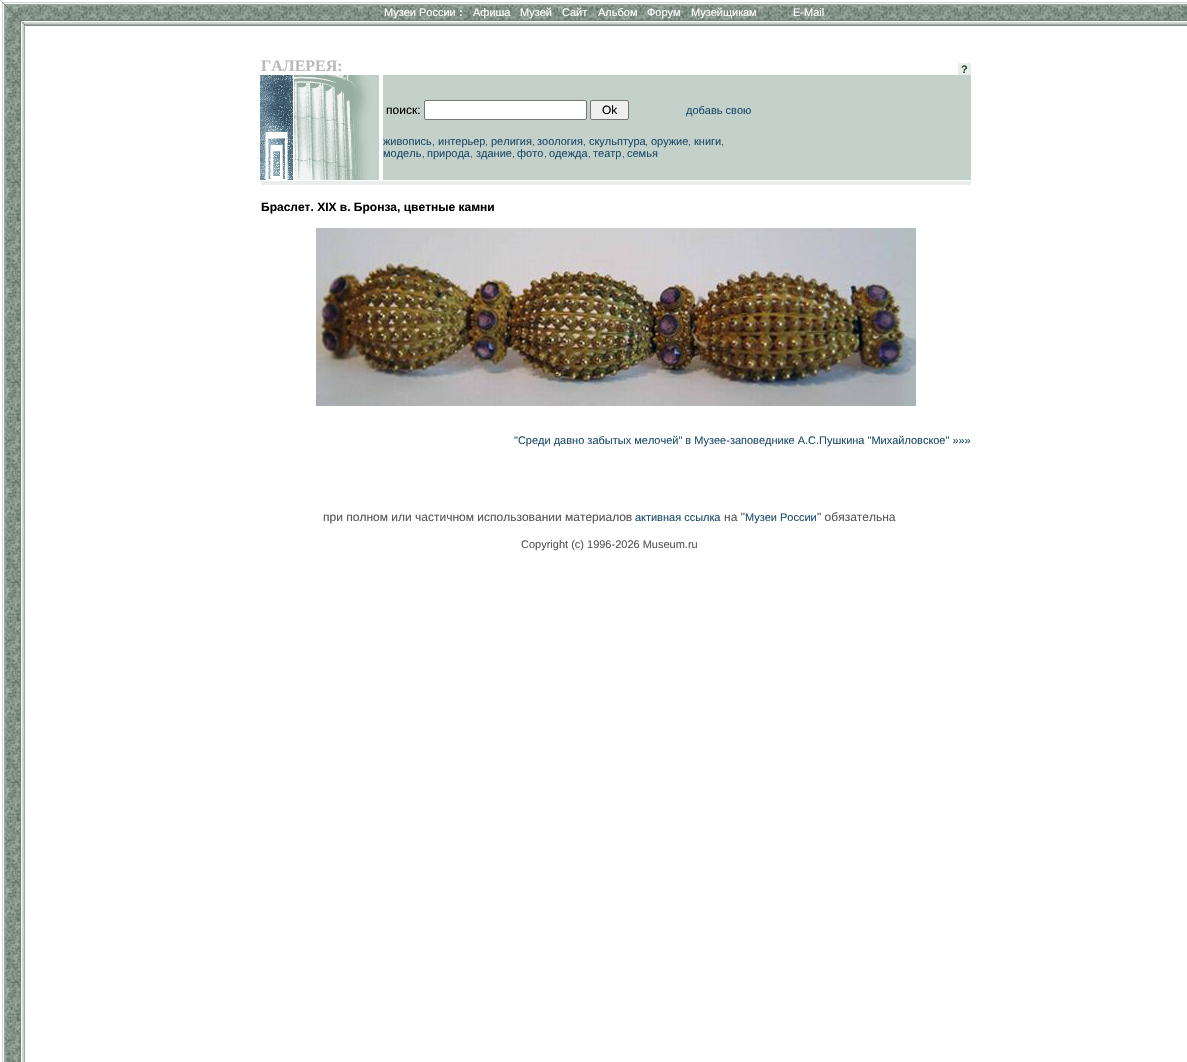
void draw(SkCanvas* canvas) {
  SkPaint paint;
  paint.setAntiAlias(true);
  auto face = [&](const char* family, int weight, float size, bool italic = false) {
    SkFontStyle style(weight, SkFontStyle::kNormal_Width,
      italic ? SkFontStyle::kItalic_Slant : SkFontStyle::kUpright_Slant);
    SkFont result(fontMgr->matchFamilyStyle(family, style), size);
    result.setSubpixel(true);
    return result;
  };
  auto paste = [&](const char* path, float x, float y, float w, float h) {
    auto image = SkImages::DeferredFromEncodedData(SkData::MakeFromFileName(path));
    canvas->drawImageRect(image, SkRect::MakeXYWH(x, y, w, h), SkSamplingOptions());
  };
  canvas->clear(0xffffffff);
  paste("img/1.png", 2, 25, 23, 1037);
  paste("img/2.png", 0, 0, 25, 25);
  paste("img/3.png", 25, 0, 1162, 25);
  paint.setColor(0xff888888);
  canvas->drawRect(SkRect::MakeXYWH(25, 25, 1162, 1), paint);
  paint.setColor(0xffe9edeb);
  canvas->drawRect(SkRect::MakeXYWH(958, 63, 13, 12), paint);
  paste("img/4.png", 260, 75, 33, 105);
  paste("img/5.png", 294, 75, 85, 105);
  paint.setColor(0xffc4d0ca);
  canvas->drawRect(SkRect::MakeXYWH(383, 75, 588, 105), paint);
  paint.setColor(0xffffffff);
  canvas->drawRoundRect(SkRect::MakeXYWH(424.5f, 100.5f, 162, 19), 1.5f, 1.5f, paint);
  paint.setStroke(true);
  paint.setStrokeWidth(1);
  paint.setColor(0xff767676);
  canvas->drawRoundRect(SkRect::MakeXYWH(424.5f, 100.5f, 162, 19), 1.5f, 1.5f, paint);
  paint.setStroke(false);
  paint.setColor(0xffefefef);
  canvas->drawRoundRect(SkRect::MakeXYWH(590.5f, 100.5f, 38, 19), 1.5f, 1.5f, paint);
  paint.setStroke(true);
  paint.setColor(0xff767676);
  canvas->drawRoundRect(SkRect::MakeXYWH(590.5f, 100.5f, 38, 19), 1.5f, 1.5f, paint);
  paint.setStroke(false);
  paint.setColor(0xffe9edeb);
  canvas->drawRect(SkRect::MakeXYWH(261, 181, 710, 4), paint);
  paste("img/6.png", 316, 228, 600, 178);
  auto f0 = face("Liberation Sans", 400, 11);
  paint.setColor(0xffffffff);
  canvas->drawString("Музеи России", 384, 16, f0, paint);
  auto f1 = face("Liberation Sans", 700, 11);
  canvas->drawString(":", 459, 16, f1, paint);
  {
    const struct { const char* s; float x, y; } items[] = {
      {"Афиша", 473, 16},
      {"Музей", 520, 16},
      {"Сайт", 562, 16},
      {"Альбом", 598, 16},
      {"Форум", 647, 16},
      {"Музейщикам", 691, 16},
      {"E-Mail", 793, 16},
    };
    for (auto [s, x, y] : items) {
      canvas->drawString(s, x, y, f0, paint);
    }
  }
  auto f2 = face("Liberation Serif", 700, 16);
  paint.setColor(0xffbababa);
  canvas->drawString("ГАЛЕРЕЯ:", 261, 71, f2, paint);
  paint.setColor(0xff2a4931);
  canvas->drawString("?", 961, 73, f1, paint);
  auto f3 = face("Liberation Sans", 400, 12);
  paint.setColor(0xff000000);
  canvas->drawString("поиск:", 386, 114, f3, paint);
  canvas->drawString("Ok", 602, 114, f3, paint);
  paint.setColor(0xff1e4c6a);
  canvas->drawString("добавь свою", 686, 114, f0, paint);
  canvas->drawString("живопись", 383, 145, f0, paint);
  auto f4 = face("Liberation Sans", 400, 10);
  paint.setColor(0xff39595c);
  canvas->drawString(",", 432, 145, f4, paint);
  paint.setColor(0xff1e4c6a);
  canvas->drawString("интерьер", 438, 145, f0, paint);
  paint.setColor(0xff39595c);
  canvas->drawString(",", 485, 145, f4, paint);
  paint.setColor(0xff1e4c6a);
  canvas->drawString("религия", 491, 145, f0, paint);
  paint.setColor(0xff39595c);
  canvas->drawString(",", 532, 145, f4, paint);
  paint.setColor(0xff1e4c6a);
  canvas->drawString("зоология", 537, 145, f0, paint);
  paint.setColor(0xff39595c);
  canvas->drawString(",", 583, 145, f4, paint);
  paint.setColor(0xff1e4c6a);
  canvas->drawString("скульптура", 589, 145, f0, paint);
  paint.setColor(0xff39595c);
  canvas->drawString(",", 645, 145, f4, paint);
  paint.setColor(0xff1e4c6a);
  canvas->drawString("оружие", 651, 145, f0, paint);
  paint.setColor(0xff39595c);
  canvas->drawString(",", 688, 145, f4, paint);
  paint.setColor(0xff1e4c6a);
  canvas->drawString("книги", 694, 145, f0, paint);
  paint.setColor(0xff39595c);
  canvas->drawString(",", 721, 145, f4, paint);
  paint.setColor(0xff1e4c6a);
  canvas->drawString("модель", 383, 157, f0, paint);
  paint.setColor(0xff39595c);
  canvas->drawString(",", 422, 157, f4, paint);
  paint.setColor(0xff1e4c6a);
  canvas->drawString("природа", 427, 157, f0, paint);
  paint.setColor(0xff39595c);
  canvas->drawString(",", 470, 157, f4, paint);
  paint.setColor(0xff1e4c6a);
  canvas->drawString("здание", 476, 157, f0, paint);
  paint.setColor(0xff39595c);
  canvas->drawString(",", 512, 157, f4, paint);
  paint.setColor(0xff1e4c6a);
  canvas->drawString("фото", 517, 157, f0, paint);
  paint.setColor(0xff39595c);
  canvas->drawString(",", 544, 157, f4, paint);
  paint.setColor(0xff1e4c6a);
  canvas->drawString("одежда", 549, 157, f0, paint);
  paint.setColor(0xff39595c);
  canvas->drawString(",", 588, 157, f4, paint);
  paint.setColor(0xff1e4c6a);
  canvas->drawString("театр", 593, 157, f0, paint);
  paint.setColor(0xff39595c);
  canvas->drawString(",", 622, 157, f4, paint);
  paint.setColor(0xff1e4c6a);
  canvas->drawString("семья", 627, 157, f0, paint);
  auto f5 = face("Liberation Sans", 700, 12);
  paint.setColor(0xff000000);
  canvas->drawString("Браслет. XIX в. Бронза, цветные камни", 261, 211, f5, paint);
  paint.setColor(0xff1e4c6a);
  canvas->drawString("\"Среди давно забытых мелочей\" в Музее-заповеднике А.С.Пушкина \"Михайловское\" »»»", 514, 444, f0, paint);
  paint.setColor(0xff555555);
  canvas->drawString("при полном или частичном использовании материалов", 323, 521, f3, paint);
  paint.setColor(0xff1e4c6a);
  canvas->drawString("активная ссылка", 635, 521, f0, paint);
  paint.setColor(0xff555555);
  canvas->drawString("на \"", 724, 521, f3, paint);
  paint.setColor(0xff1e4c6a);
  canvas->drawString("Музеи России", 745, 521, f0, paint);
  paint.setColor(0xff555555);
  canvas->drawString("\" обязательна", 817, 521, f3, paint);
  canvas->drawString("Copyright (c) 1996-2026 Museum.ru", 521, 548, f0, paint);
}
